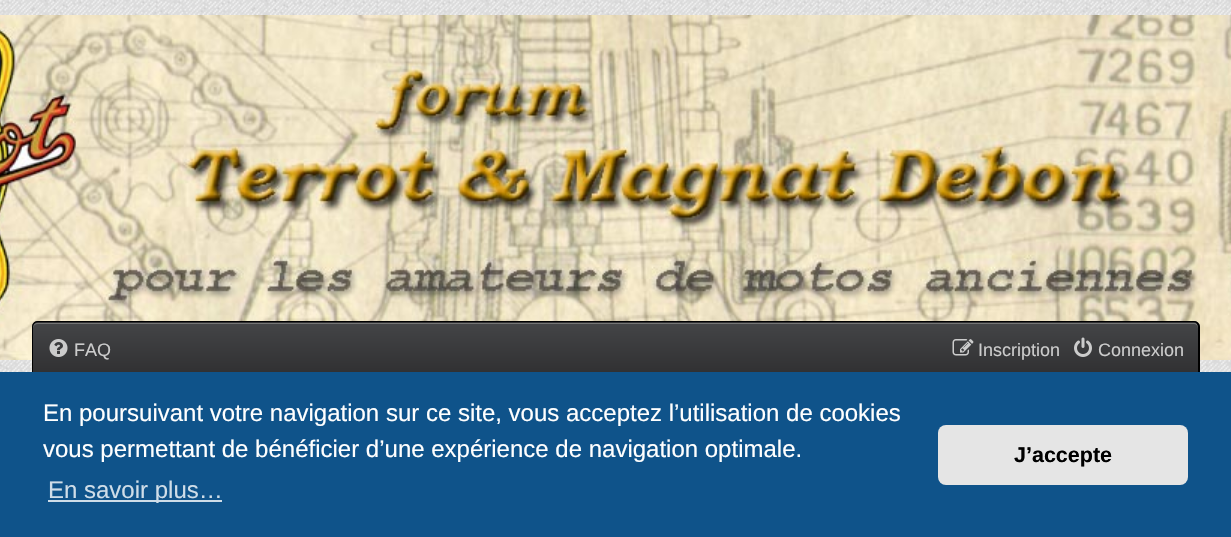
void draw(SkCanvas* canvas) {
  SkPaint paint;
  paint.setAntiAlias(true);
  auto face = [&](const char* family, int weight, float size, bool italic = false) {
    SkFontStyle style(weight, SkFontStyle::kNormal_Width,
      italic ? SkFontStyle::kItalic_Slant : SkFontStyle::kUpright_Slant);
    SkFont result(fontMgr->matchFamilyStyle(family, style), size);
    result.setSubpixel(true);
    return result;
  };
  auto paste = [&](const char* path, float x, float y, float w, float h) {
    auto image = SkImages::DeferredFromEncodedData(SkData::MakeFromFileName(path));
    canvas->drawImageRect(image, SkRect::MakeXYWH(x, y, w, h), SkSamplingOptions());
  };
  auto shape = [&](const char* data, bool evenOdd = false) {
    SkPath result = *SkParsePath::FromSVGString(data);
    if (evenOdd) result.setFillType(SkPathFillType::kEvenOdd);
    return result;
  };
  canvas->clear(0xffffffff);
  paste("img/1.png", 0, 0, 1231, 372);
  paste("img/2.png", 0, 15, 1231, 345);
  canvas->save();
  canvas->clipPath(shape("M38 321H1194C1197.5 321 1200 323.5 1200 327V377H32V327C32 323.5 34.5 321 38 321Z"), true);
  {
    const SkColor colors[] = {0xff444547, 0xff2f2f31};
    const float stops[] = {0, 1};
    const SkPoint ends[] = {{616, 268}, {616, 323}};
    paint.setShader(SkGradientShader::MakeLinear(ends, colors, stops, 2, SkTileMode::kClamp));
    paint.setAlpha(255);
  }
  canvas->drawRect(SkRect::MakeXYWH(32, 321, 1168, 2), paint);
  {
    const SkColor colors[] = {0xff444547, 0xff2f2f31};
    const float stops[] = {0, 1};
    const SkPoint ends[] = {{616, 322}, {616, 377}};
    paint.setShader(SkGradientShader::MakeLinear(ends, colors, stops, 2, SkTileMode::kClamp));
    paint.setAlpha(255);
  }
  canvas->drawRect(SkRect::MakeXYWH(32, 323, 1168, 49), paint);
  canvas->restore();
  paint.setShader(nullptr);
  paint.setColor(0xff757575);
  canvas->drawPath(shape("M38 324H1194C1196 324 1198 326 1198 328V377H1199V328C1199 325 1197 323 1194 323H38C35 323 33 325 33 328C33 326 35 324 38 324Z"), paint);
  paint.setColor(0xff000000);
  canvas->drawPath(shape("M38 321H1194C1197 321 1200 324 1200 327V376H32V327C32 324 34 321 38 321ZM38 322H1194C1196 322 1198 325 1198 327V376H33V327C33 325 35 322 38 322Z", true), paint);
  paste("img/3.png", 49, 339, 19, 18);
  paste("img/4.png", 952, 339, 22, 17);
  paste("img/5.png", 1074, 337, 18, 20);
  paint.setColor(0xff0f538a);
  canvas->drawRect(SkRect::MakeXYWH(0, 372, 1231, 165), paint);
  paint.setColor(0xffcfdde8);
  canvas->drawRect(SkRect::MakeXYWH(48, 500, 174, 2), paint);
  paint.setColor(0xffe5e5e5);
  canvas->drawRoundRect(SkRect::MakeXYWH(938, 425, 250, 60), 8, 8, paint);
  auto f0 = face("Liberation Sans", 400, 18);
  paint.setColor(0xffcccccc);
  {
    const struct { const char* s; float x, y; } items[] = {
      {"FAQ", 74, 356},
      {"Inscription", 978, 356},
      {"Connexion", 1098, 356},
    };
    for (auto [s, x, y] : items) {
      canvas->drawString(s, x, y, f0, paint);
    }
  }
  auto f1 = face("Liberation Sans", 400, 24);
  paint.setColor(0xffffffff);
  canvas->drawString("En poursuivant votre navigation sur ce site, vous acceptez l’utilisation de cookies", 43, 421, f1, paint);
  canvas->drawString("vous permettant de bénéficier d’une expérience de navigation optimale.", 43, 457, f1, paint);
  paint.setColor(0xffcfdde8);
  canvas->drawString("En savoir plus…", 48, 498, f1, paint);
  auto f2 = face("Liberation Sans", 700, 21.5f);
  paint.setColor(0xff000000);
  canvas->drawString("J’accepte", 1014, 462, f2, paint);
}
